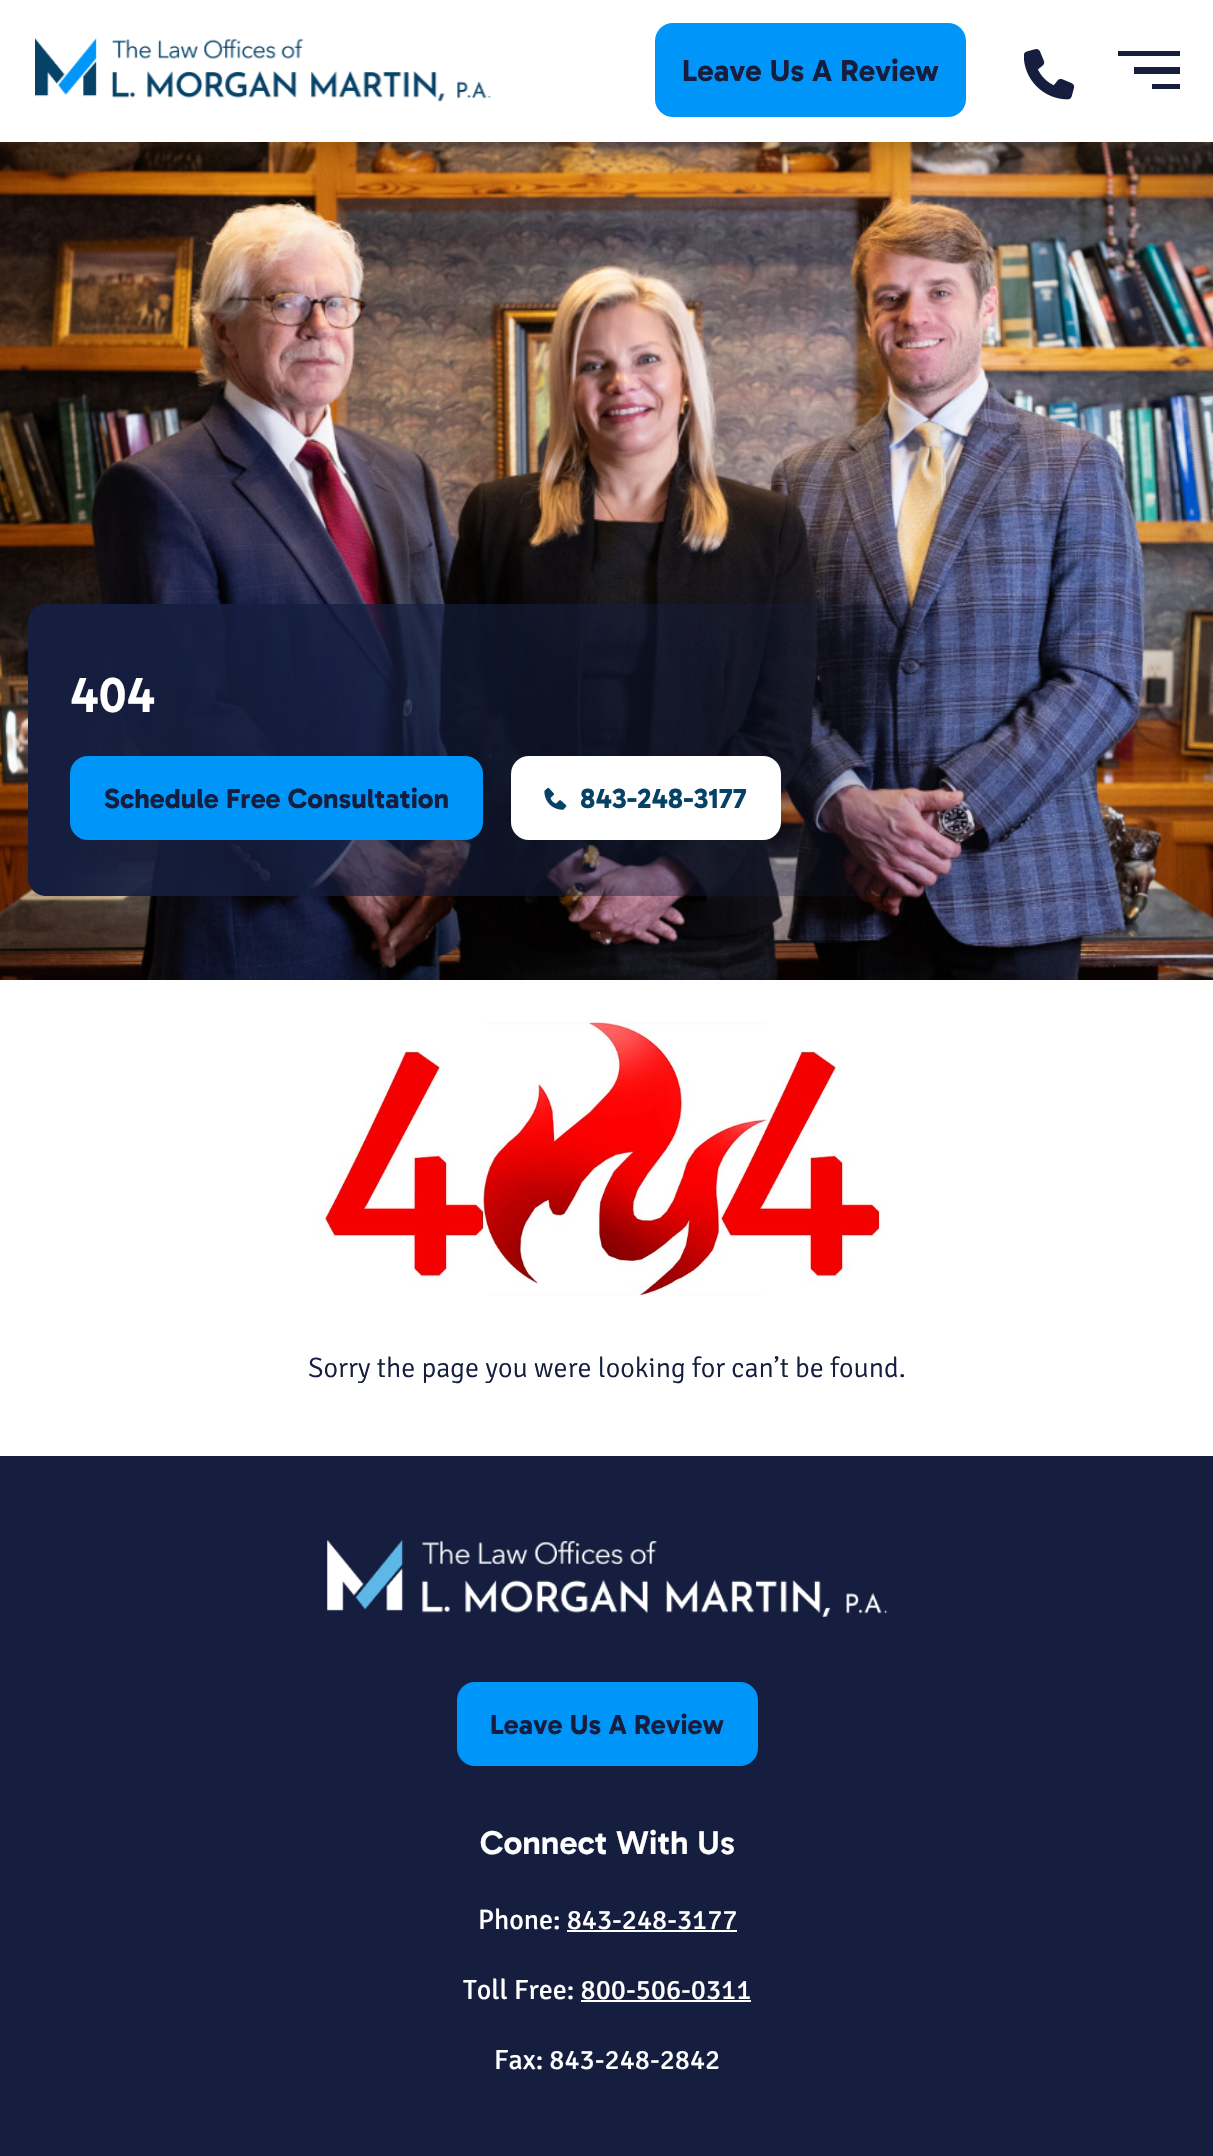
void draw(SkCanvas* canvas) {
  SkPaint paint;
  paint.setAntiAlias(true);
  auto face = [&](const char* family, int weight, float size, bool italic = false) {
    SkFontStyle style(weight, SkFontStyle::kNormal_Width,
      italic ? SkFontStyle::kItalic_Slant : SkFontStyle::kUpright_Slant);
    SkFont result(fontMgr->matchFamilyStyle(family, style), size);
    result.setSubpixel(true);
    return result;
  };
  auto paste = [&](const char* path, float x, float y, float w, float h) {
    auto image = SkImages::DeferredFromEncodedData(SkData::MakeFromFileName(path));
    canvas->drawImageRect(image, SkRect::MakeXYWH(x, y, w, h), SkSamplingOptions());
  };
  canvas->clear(0xffffffff);
  paste("img/3.png", 0, 142, 1213, 838);
  paint.setColor(0x40000000);
  paint.setMaskFilter(SkMaskFilter::MakeBlur(kNormal_SkBlurStyle, 13));
  canvas->drawRect(SkRect::MakeXYWH(0, 7, 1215, 142), paint);
  paint.setMaskFilter(nullptr);
  paint.setColor(0xffffffff);
  canvas->drawRect(SkRect::MakeXYWH(0, 0, 1213, 142), paint);
  paste("img/1.png", 35, 38, 456, 64);
  paint.setColor(0xff0095f8);
  canvas->drawRoundRect(SkRect::MakeXYWH(655, 23, 311, 94), 18, 18, paint);
  paste("img/2.png", 1024, 49, 51, 51);
  {
    const struct { float x, y, w, h; SkColor color; } items[] = {
      {1118, 51, 62, 5, 0xff151e3f},
      {1134, 67, 46, 7, 0xff151e3f},
      {1152, 84, 28, 5, 0xff151e3f},
    };
    for (auto [x, y, w, h, color] : items) {
      paint.setColor(color);
      canvas->drawRect(SkRect::MakeXYWH(x, y, w, h), paint);
    }
  }
  paint.setColor(0xff0095f8);
  canvas->drawRoundRect(SkRect::MakeXYWH(70, 756, 413, 84), 18, 18, paint);
  paint.setColor(0xffffffff);
  canvas->drawRoundRect(SkRect::MakeXYWH(511, 756, 270, 84), 18, 18, paint);
  paste("img/4.png", 544, 788, 23, 22);
  paste("img/5.png", 318, 1017, 568, 279);
  paint.setColor(0xff151e3f);
  canvas->drawRect(SkRect::MakeXYWH(0, 1456, 1213, 700), paint);
  paste("img/6.png", 327, 1540, 561, 77);
  paint.setColor(0xff0095f8);
  canvas->drawRoundRect(SkRect::MakeXYWH(457, 1682, 301, 84), 18, 18, paint);
  paint.setColor(0xffffffff);
  canvas->drawRect(SkRect::MakeXYWH(567, 1930, 170, 2), paint);
  canvas->drawRect(SkRect::MakeXYWH(581, 2000, 170, 2), paint);
  auto f0 = face("Gabarito", 700, 30.75f);
  paint.setColor(0xff151e3f);
  canvas->drawString("Leave Us A Review", 682, 81, f0, paint);
  auto f1 = face("Gabarito", 600, 50);
  paint.setColor(0xffffffff);
  canvas->drawString("404", 70, 712, f1, paint);
  auto f2 = face("Gabarito", 700, 28);
  paint.setColor(0xff151e3f);
  canvas->drawString("Schedule Free Consultation", 104, 808, f2, paint);
  paint.setColor(0xff064266);
  canvas->drawString("843-248-3177", 580, 808, f2, paint);
  auto f3 = face("Signika", 300, 28);
  paint.setColor(0xff151e3f);
  canvas->drawString("Sorry the page you were looking for can’t be found.", 308, 1377, f3, paint);
  canvas->drawString("Leave Us A Review", 490, 1734, f2, paint);
  auto f4 = face("Gabarito", 600, 33.5f);
  paint.setColor(0xffffffff);
  canvas->drawString("Connect With Us", 480, 1854, f4, paint);
  auto f5 = face("Signika", 400, 28);
  {
    const struct { const char* s; float x, y; } items[] = {
      {"Phone: 843-248-3177", 478, 1929},
      {"Toll Free: 800-506-0311", 463, 1999},
      {"Fax: 843-248-2842", 494, 2069},
    };
    for (auto [s, x, y] : items) {
      canvas->drawString(s, x, y, f5, paint);
    }
  }
}
